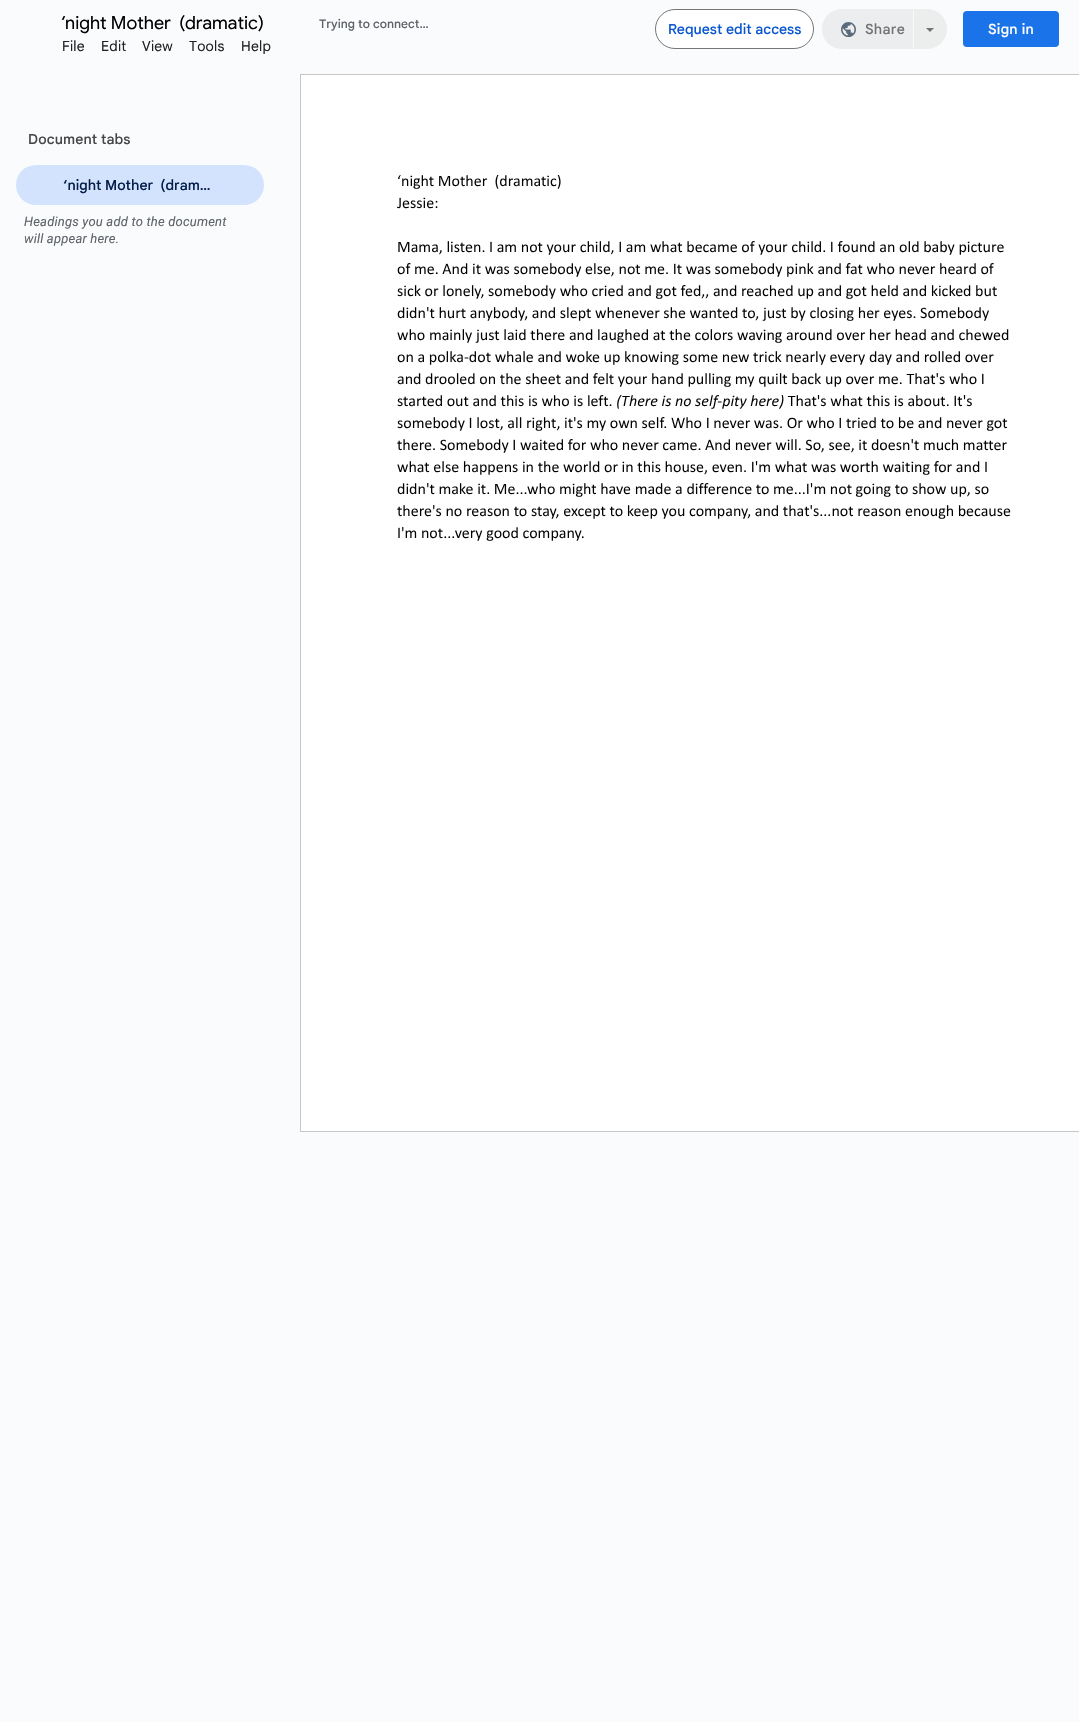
void draw(SkCanvas* canvas) {
  SkPaint paint;
  paint.setAntiAlias(true);
  auto face = [&](const char* family, int weight, float size, bool italic = false) {
    SkFontStyle style(weight, SkFontStyle::kNormal_Width,
      italic ? SkFontStyle::kItalic_Slant : SkFontStyle::kUpright_Slant);
    SkFont result(fontMgr->matchFamilyStyle(family, style), size);
    result.setSubpixel(true);
    return result;
  };
  auto writeSpaced = [&](const char* s, float x, float y, const SkFont& font, const SkPaint& ink, float letter, float word) {
    std::vector<SkGlyphID> glyphs(font.countText(s, strlen(s), SkTextEncoding::kUTF8));
    std::vector<float> xs(glyphs.size());
    font.textToGlyphs(s, strlen(s), SkTextEncoding::kUTF8, glyphs);
    font.getXPos(glyphs, xs, x);
    float extra = 0;
    for (size_t i = 0; i < glyphs.size(); i++) {
      xs[i] += extra;
      extra += letter + word * (glyphs[i] == font.unicharToGlyph(' '));
    }
    canvas->drawTextBlob(SkTextBlob::MakeFromPosHGlyphs(glyphs, xs, y, font), 0, 0, ink);
  };
  auto paste = [&](const char* path, float x, float y, float w, float h) {
    auto image = SkImages::DeferredFromEncodedData(SkData::MakeFromFileName(path));
    canvas->drawImageRect(image, SkRect::MakeXYWH(x, y, w, h), SkSamplingOptions());
  };
  auto shape = [&](const char* data, bool evenOdd = false) {
    SkPath result = *SkParsePath::FromSVGString(data);
    if (evenOdd) result.setFillType(SkPathFillType::kEvenOdd);
    return result;
  };
  canvas->clear(0xfff9fbfd);
  paint.setColor(0xffffffff);
  canvas->drawRoundRect(SkRect::MakeXYWH(655.5f, 9.5f, 158, 39), 19.5f, 19.5f, paint);
  paint.setStroke(true);
  paint.setStrokeWidth(1);
  paint.setColor(0xff747775);
  canvas->drawRoundRect(SkRect::MakeXYWH(655.5f, 9.5f, 158, 39), 19.5f, 19.5f, paint);
  paint.setStroke(false);
  paint.setColor(0xffecedee);
  canvas->drawPath(shape("M842 9H914V49H842C831 49 822 40 822 29C822 18 831 9 842 9Z"), paint);
  paste("img/1.png", 841, 22, 15, 15);
  paint.setColor(0x9ee4e4e4);
  canvas->drawPath(shape("M913 9H927C938 9 947 18 947 29C947 40 938 49 927 49H913Z"), paint);
  paint.setColor(0xfff8f8f9);
  canvas->drawPath(shape("M914 10L913 9V49L914 48Z"), paint);
  paint.setColor(0xff727373);
  canvas->drawPath(shape("M926 28H934L930 32Z"), paint);
  paint.setColor(0xff1a73e8);
  canvas->drawRoundRect(SkRect::MakeXYWH(963, 11, 96, 36), 4, 4, paint);
  paint.setColor(0xffd3e3fd);
  canvas->drawRoundRect(SkRect::MakeXYWH(16, 165, 248, 40), 20, 20, paint);
  paint.setStroke(true);
  paint.setColor(0xffc7c7c7);
  canvas->drawRect(SkRect::MakeXYWH(300.5f, 74.5f, 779, 1057), paint);
  paste("img/2.png", 301, 75, 778, 1056);
  auto f0 = face("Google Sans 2", 400, 18);
  paint.setStroke(false);
  paint.setColor(0xff000000);
  canvas->drawString("‘night Mother  (dramatic)", 61, 29, f0, paint);
  auto f1 = face("Google Sans", 500, 12);
  paint.setColor(0xff5f6368);
  canvas->drawString("Trying to connect…", 319, 28, f1, paint);
  auto f2 = face("Google Sans", 500, 14);
  paint.setColor(0xff0b57d0);
  canvas->drawString("Request edit access", 668, 34, f2, paint);
  paint.setColor(0xff727373);
  writeSpaced("Share", 865, 34, f2, paint, 0.25f, 0);
  paint.setColor(0xffffffff);
  writeSpaced("Sign in", 988, 34, f2, paint, 0.25f, 0);
  auto f3 = face("Google Sans", 400, 14);
  paint.setColor(0xff202124);
  {
    const struct { const char* s; float x, y; } items[] = {
      {"File", 62, 51},
      {"Edit", 101, 51},
      {"View", 142, 51},
      {"Tools", 189, 51},
      {"Help", 241, 51},
    };
    for (auto [s, x, y] : items) {
      writeSpaced(s, x, y, f3, paint, 0.2f, 0);
    }
  }
  paint.setColor(0xff444746);
  writeSpaced("Document tabs", 28, 144, f2, paint, 0.1f, 0);
  paint.setColor(0xff041e49);
  canvas->drawString("‘night Mother  (dram…", 63, 190, f2, paint);
  auto f4 = face("Roboto", 400, 13, true);
  paint.setColor(0xff5f6368);
  writeSpaced("Headings you add to the document", 24, 226, f4, paint, 0.2f, 0);
  writeSpaced("will appear here.", 24, 243, f4, paint, 0.2f, 0);
}
